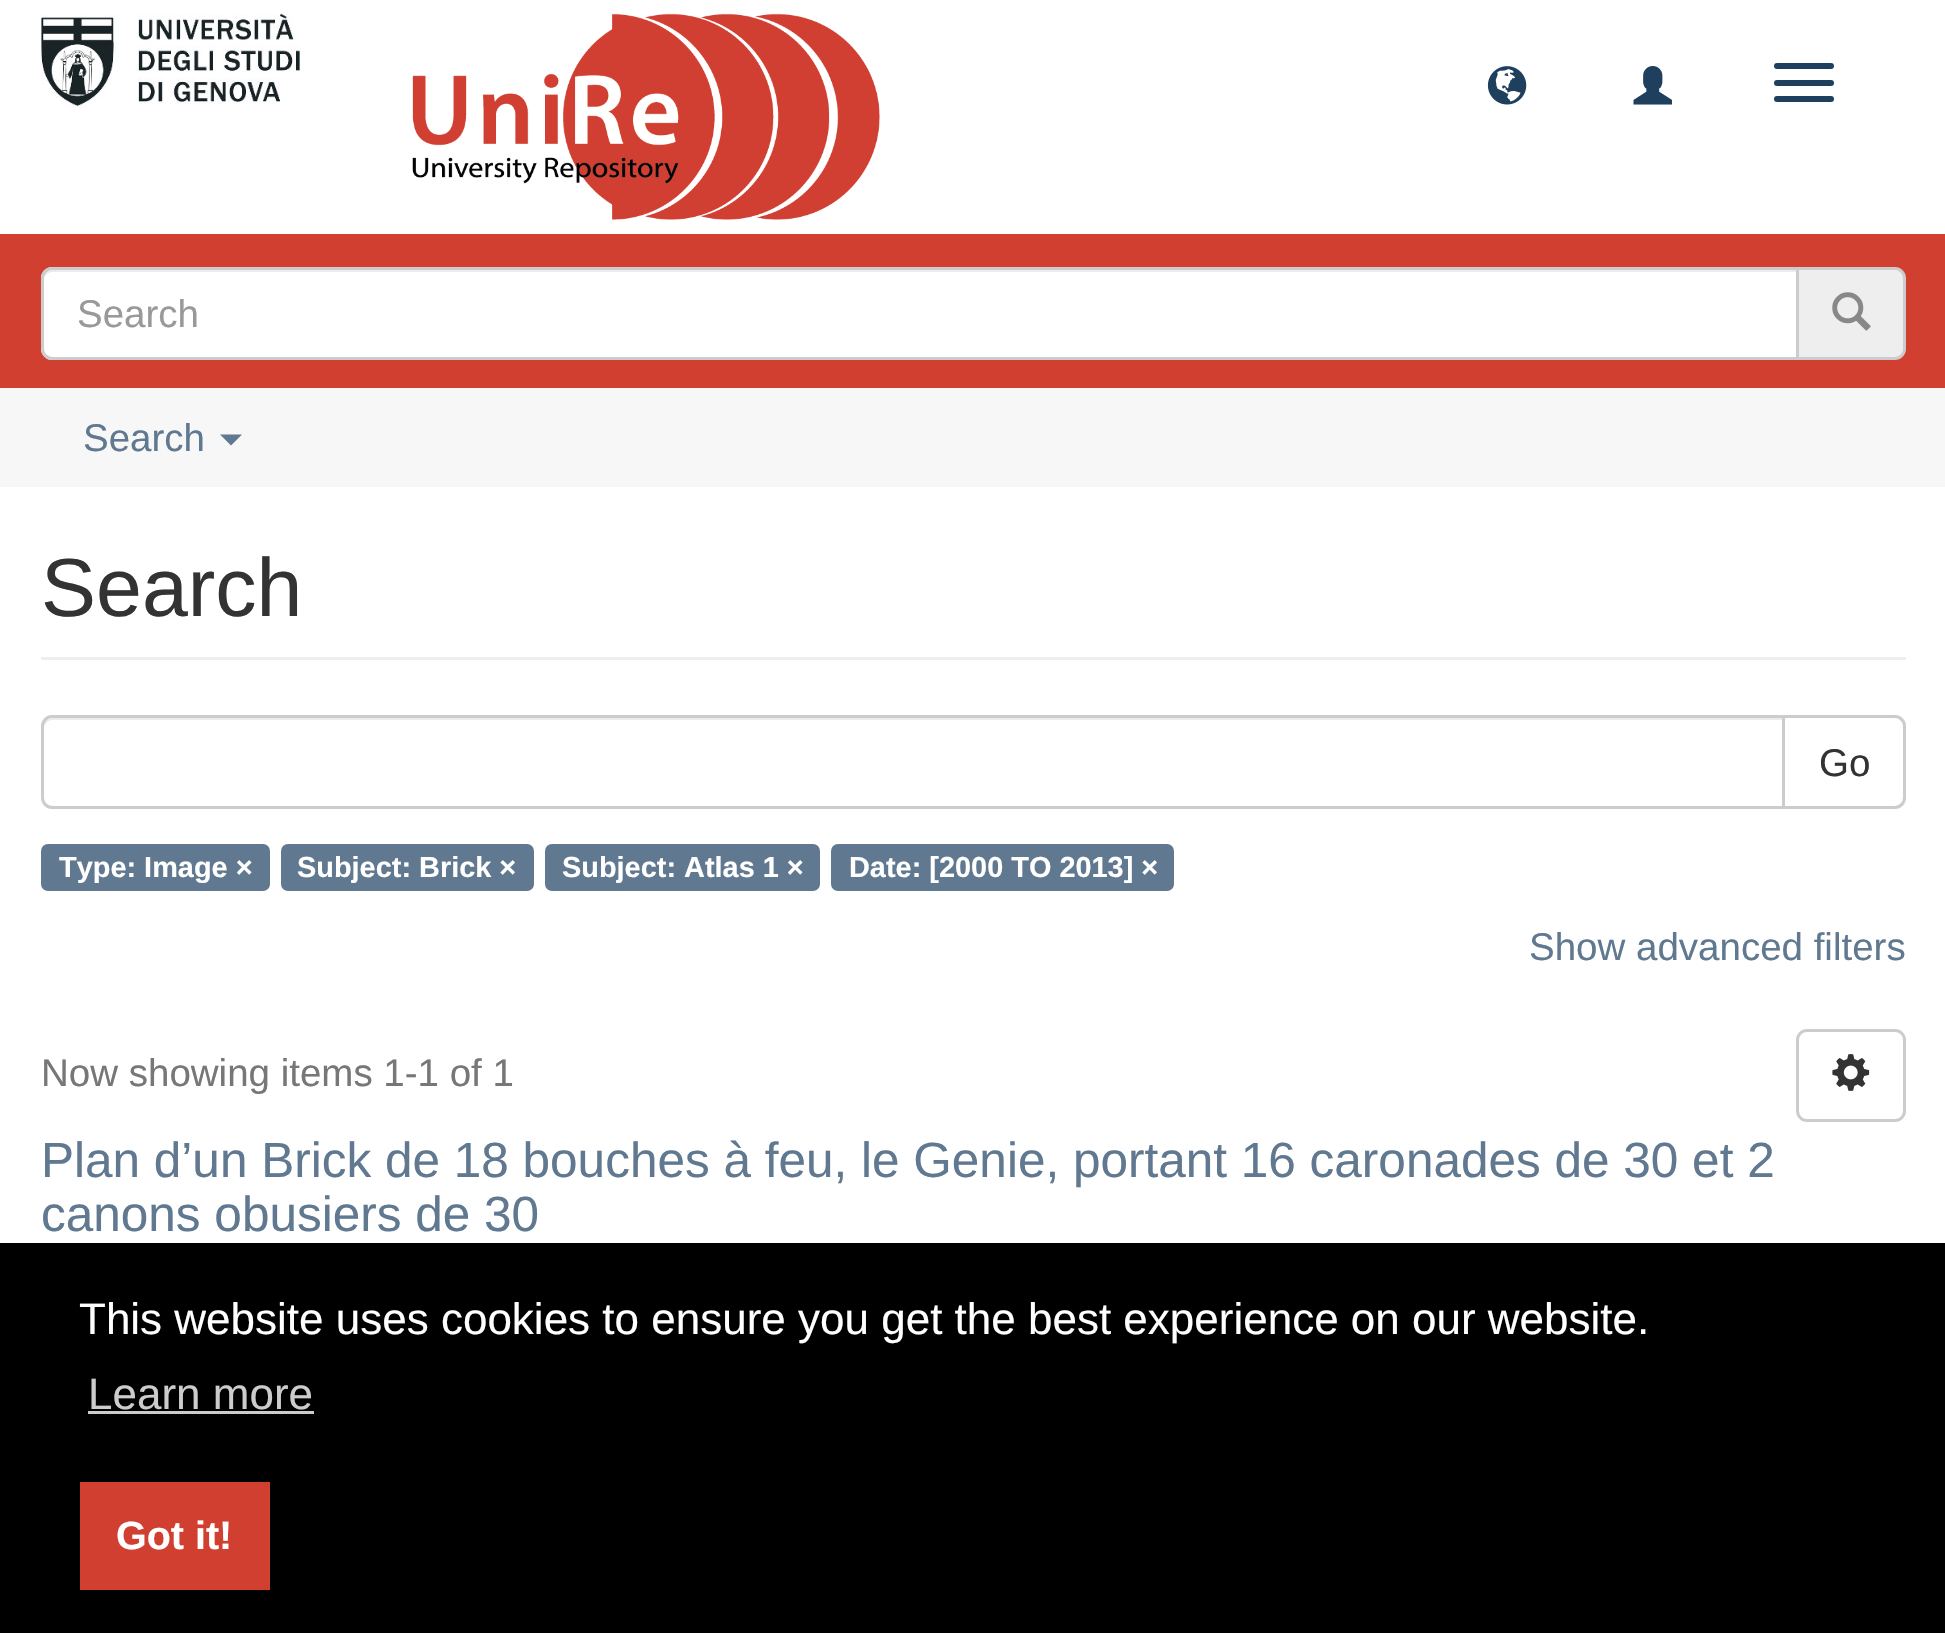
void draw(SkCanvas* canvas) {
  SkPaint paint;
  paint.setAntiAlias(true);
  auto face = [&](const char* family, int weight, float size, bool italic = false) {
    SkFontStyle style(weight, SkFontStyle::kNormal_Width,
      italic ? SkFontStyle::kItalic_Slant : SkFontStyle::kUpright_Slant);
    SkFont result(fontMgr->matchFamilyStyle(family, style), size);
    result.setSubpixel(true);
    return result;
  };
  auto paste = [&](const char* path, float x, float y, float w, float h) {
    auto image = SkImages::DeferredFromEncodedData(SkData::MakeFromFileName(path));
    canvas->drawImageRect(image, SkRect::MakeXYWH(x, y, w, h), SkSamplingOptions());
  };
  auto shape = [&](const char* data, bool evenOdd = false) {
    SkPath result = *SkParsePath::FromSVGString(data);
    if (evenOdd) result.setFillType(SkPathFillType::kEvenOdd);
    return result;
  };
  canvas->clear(0xffffffff);
  paste("img/1.png", 41, 13, 260, 97);
  paste("img/2.png", 412, 13, 468, 207);
  paste("img/3.png", 1487, 66, 40, 39);
  paste("img/4.png", 1633, 66, 39, 39);
  paint.setColor(0xff1f3f5e);
  canvas->drawRoundRect(SkRect::MakeXYWH(1774, 63, 60, 6), 3, 3, paint);
  canvas->drawRoundRect(SkRect::MakeXYWH(1774, 80, 60, 6), 3, 3, paint);
  canvas->drawRoundRect(SkRect::MakeXYWH(1774, 96, 60, 6), 3, 3, paint);
  paint.setColor(0xffd03f30);
  canvas->drawRect(SkRect::MakeXYWH(0, 234, 1945, 154), paint);
  paint.setColor(0xffeeeeee);
  canvas->drawPath(shape("M1797.5 268.5H1895C1900 268.5 1904.5 273 1904.5 278V349C1904.5 354 1900 358.5 1895 358.5H1797.5Z"), paint);
  paint.setStroke(true);
  paint.setStrokeWidth(3);
  paint.setColor(0xffcccccc);
  canvas->drawPath(shape("M1797.5 268.5H1895C1900 268.5 1904.5 273 1904.5 278V349C1904.5 354 1900 358.5 1895 358.5H1797.5Z"), paint);
  paint.setStroke(false);
  paint.setColor(0xffffffff);
  canvas->drawPath(shape("M52 267H1799V360H52C46 360 41 355 41 349V278C41 272 46 267 52 267Z"), paint);
  paint.setColor(0xffececec);
  canvas->drawPath(shape("M52 272H1796V270H52C46 270 44 275 44 280C44 276 48 272 52 272Z"), paint);
  paint.setStroke(true);
  paint.setColor(0xffcccccc);
  canvas->drawPath(shape("M52 268.5H1797.5V358.5H52C47 358.5 42.5 354 42.5 349V278C42.5 273 47 268.5 52 268.5Z"), paint);
  paste("img/5.png", 1832, 292, 39, 39);
  paint.setStroke(false);
  paint.setColor(0xfff7f7f7);
  canvas->drawRect(SkRect::MakeXYWH(0, 388, 1945, 99), paint);
  paint.setColor(0xff607890);
  canvas->drawPath(shape("M220 434.5H242L231 445.5Z"), paint);
  paint.setColor(0xffeeeeee);
  canvas->drawRect(SkRect::MakeXYWH(41, 657, 1865, 3), paint);
  paint.setStroke(true);
  paint.setColor(0xffcccccc);
  canvas->drawPath(shape("M1783.5 716.5H1895C1900 716.5 1904.5 721 1904.5 726V798C1904.5 803 1900 807.5 1895 807.5H1783.5Z"), paint);
  paint.setStroke(false);
  paint.setColor(0xffffffff);
  canvas->drawPath(shape("M52 715H1785V809H52C46 809 41 804 41 798V726C41 720 46 715 52 715Z"), paint);
  paint.setColor(0xffececec);
  canvas->drawPath(shape("M52 720H1782V718H52C48 718 44 722 44 726V729C44 724 48 720 52 720Z"), paint);
  paint.setStroke(true);
  paint.setColor(0xffcccccc);
  canvas->drawPath(shape("M52 716.5H1783.5V807.5H52C47 807.5 42.5 803 42.5 798V726C42.5 721 47 716.5 52 716.5Z"), paint);
  paint.setStroke(false);
  paint.setColor(0xff607890);
  canvas->drawRoundRect(SkRect::MakeXYWH(41, 844, 229, 47), 7, 7, paint);
  canvas->drawRoundRect(SkRect::MakeXYWH(281, 844, 253, 47), 7, 7, paint);
  canvas->drawRoundRect(SkRect::MakeXYWH(545, 844, 275, 47), 7, 7, paint);
  canvas->drawRoundRect(SkRect::MakeXYWH(831, 844, 343, 47), 7, 7, paint);
  paint.setStroke(true);
  paint.setColor(0xffcccccc);
  canvas->drawRoundRect(SkRect::MakeXYWH(1797.5f, 1030.5f, 107, 90), 9.5f, 9.5f, paint);
  paste("img/6.png", 1832, 1054, 38, 37);
  paint.setStroke(false);
  {
    const struct { float x, y, w, h; SkColor color; } items[] = {
      {0, 1243, 1945, 390, 0xff000000},
      {88, 1411, 226, 3, 0xffcccccc},
      {80, 1482, 190, 108, 0xffd03f30},
    };
    for (auto [x, y, w, h, color] : items) {
      paint.setColor(color);
      canvas->drawRect(SkRect::MakeXYWH(x, y, w, h), paint);
    }
  }
  auto f0 = face("Liberation Sans", 400, 38.5f);
  paint.setColor(0xff999999);
  canvas->drawString("Search", 77, 327, f0, paint);
  paint.setColor(0xff607890);
  canvas->drawString("Search", 83, 451, f0, paint);
  auto f1 = face("Liberation Sans", 400, 82.5f);
  paint.setColor(0xff333333);
  canvas->drawString("Search", 41, 616, f1, paint);
  canvas->drawString("Go", 1819, 776, f0, paint);
  auto f2 = face("Liberation Sans", 700, 28.9f);
  paint.setColor(0xffffffff);
  {
    const struct { const char* s; float x, y; } items[] = {
      {"Type: Image ×", 59, 877},
      {"Subject: Brick ×", 297, 877},
      {"Subject: Atlas 1 ×", 562, 877},
      {"Date: [2000 TO 2013] ×", 849, 877},
    };
    for (auto [s, x, y] : items) {
      canvas->drawString(s, x, y, f2, paint);
    }
  }
  paint.setColor(0xff607890);
  canvas->drawString("Show advanced filters", 1529, 960, f0, paint);
  paint.setColor(0xff777777);
  canvas->drawString("Now showing items 1-1 of 1", 41, 1086, f0, paint);
  auto f3 = face("Liberation Sans", 400, 49.5f);
  paint.setColor(0xff607890);
  canvas->drawString("Plan d’un Brick de 18 bouches à feu, le Genie, portant 16 caronades de 30 et 2", 41, 1177, f3, paint);
  canvas->drawString("canons obusiers de 30", 41, 1231, f3, paint);
  auto f4 = face("Liberation Sans", 400, 44);
  paint.setColor(0xffffffff);
  canvas->drawString("This website uses cookies to ensure you get the best experience on our website.", 79, 1334, f4, paint);
  paint.setColor(0xffcccccc);
  canvas->drawString("Learn more", 88, 1409, f4, paint);
  auto f5 = face("Liberation Sans", 700, 39.5f);
  paint.setColor(0xffffffff);
  canvas->drawString("Got it!", 116, 1549, f5, paint);
}
